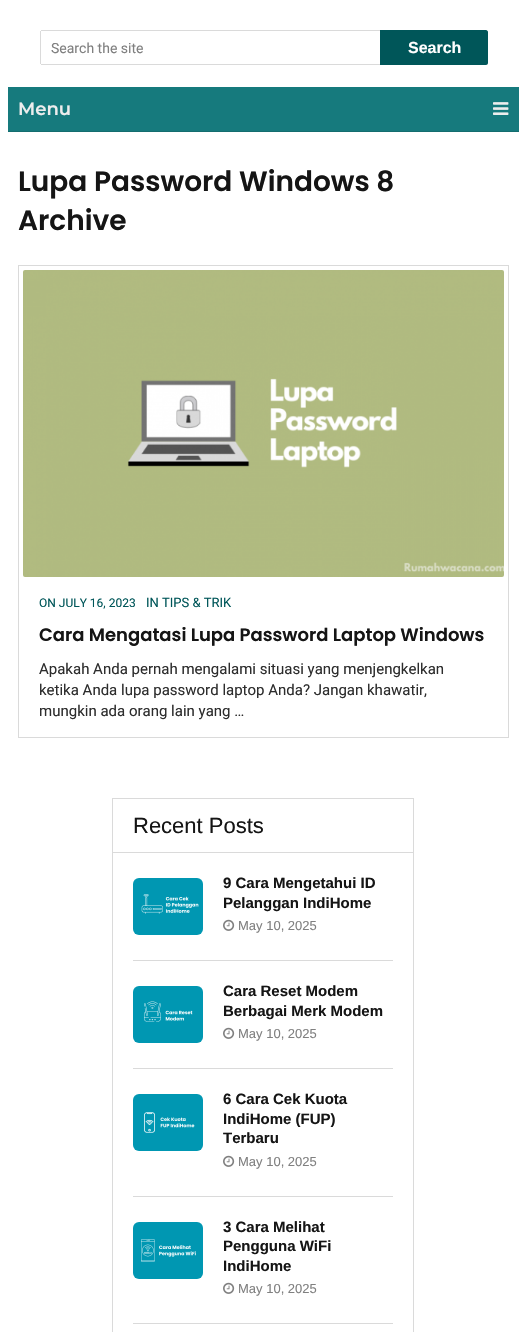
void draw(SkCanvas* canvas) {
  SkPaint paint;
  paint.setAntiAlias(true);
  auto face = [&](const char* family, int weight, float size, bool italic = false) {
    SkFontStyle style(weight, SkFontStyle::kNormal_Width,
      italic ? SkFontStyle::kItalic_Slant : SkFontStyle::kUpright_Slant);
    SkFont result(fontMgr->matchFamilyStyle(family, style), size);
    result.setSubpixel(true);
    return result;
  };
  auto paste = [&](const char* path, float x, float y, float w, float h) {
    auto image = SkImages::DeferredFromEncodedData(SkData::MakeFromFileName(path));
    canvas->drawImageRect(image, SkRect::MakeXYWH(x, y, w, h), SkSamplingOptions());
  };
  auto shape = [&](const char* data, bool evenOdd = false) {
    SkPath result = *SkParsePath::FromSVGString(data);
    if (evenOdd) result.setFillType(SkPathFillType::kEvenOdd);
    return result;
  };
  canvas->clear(0xffffffff);
  {
    const struct { float x, y, w, h; SkColor color; } items[] = {
      {41, 30, 340, 1, 0xffdadada},
      {41, 64, 340, 1, 0xffdadada},
      {40, 31, 1, 33, 0xffdadada},
    };
    for (auto [x, y, w, h, color] : items) {
      paint.setColor(color);
      canvas->drawRect(SkRect::MakeXYWH(x, y, w, h), paint);
    }
  }
  paint.setColor(0xff005659);
  canvas->drawPath(shape("M380 30H486C487 30 488 31 488 32V63C488 64 487 65 486 65H380Z"), paint);
  paint.setColor(0xff167a7d);
  canvas->drawRect(SkRect::MakeXYWH(8, 87, 511, 44), paint);
  paint.setColor(0xff146d6f);
  canvas->drawRect(SkRect::MakeXYWH(8, 131, 511, 1), paint);
  paste("img/1.png", 493, 102, 16, 13);
  paint.setStroke(true);
  paint.setStrokeWidth(1);
  paint.setColor(0xffdadada);
  canvas->drawRect(SkRect::MakeXYWH(18.5f, 265.5f, 490, 472), paint);
  paste("img/2.png", 23, 270, 481, 307);
  canvas->drawRect(SkRect::MakeXYWH(112.5f, 798.5f, 301, 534), paint);
  paint.setStroke(false);
  canvas->drawRect(SkRect::MakeXYWH(113, 852, 300, 1), paint);
  canvas->drawRect(SkRect::MakeXYWH(133, 960, 260, 1), paint);
  paste("img/3.png", 133, 878, 70, 57);
  paste("img/4.png", 223, 919, 12, 12);
  canvas->drawRect(SkRect::MakeXYWH(133, 1068, 260, 1), paint);
  paste("img/5.png", 133, 986, 70, 57);
  paste("img/4.png", 223, 1027, 12, 12);
  canvas->drawRect(SkRect::MakeXYWH(133, 1196, 260, 1), paint);
  paste("img/6.png", 133, 1094, 70, 57);
  paste("img/4.png", 223, 1155, 12, 12);
  canvas->drawRect(SkRect::MakeXYWH(133, 1323, 260, 1), paint);
  paste("img/7.png", 133, 1222, 70, 57);
  paste("img/4.png", 223, 1282, 12, 12);
  auto f0 = face("Roboto", 400, 14);
  paint.setColor(0xff808080);
  canvas->drawString("Search the site", 51, 53, f0, paint);
  auto f1 = face("Liberation Sans", 700, 16);
  paint.setColor(0xffffffff);
  canvas->drawString("Search", 408, 53, f1, paint);
  auto f2 = face("Montserrat", 600, 18);
  paint.setColor(0xffededed);
  canvas->drawString("Menu", 18, 115, f2, paint);
  auto f3 = face("Poppins", 600, 28);
  paint.setColor(0xff151515);
  canvas->drawString("Lupa Password Windows 8", 18, 191, f3, paint);
  canvas->drawString("Archive", 18, 230, f3, paint);
  auto f4 = face("Roboto", 400, 12);
  paint.setColor(0xff005659);
  canvas->drawString("ON JULY 16, 2023", 39, 607, f4, paint);
  auto f5 = face("Roboto", 400, 13);
  canvas->drawString("IN TIPS & TRIK", 146, 607, f5, paint);
  auto f6 = face("Poppins", 600, 18);
  paint.setColor(0xff151515);
  canvas->drawString("Cara Mengatasi Lupa Password Laptop Windows", 39, 641, f6, paint);
  auto f7 = face("Roboto", 400, 15);
  paint.setColor(0xff2d2d2d);
  {
    const struct { const char* s; float x, y; } items[] = {
      {"Apakah Anda pernah mengalami situasi yang menjengkelkan", 39, 674},
      {"ketika Anda lupa password laptop Anda? Jangan khawatir,", 39, 695},
      {"mungkin ada orang lain yang …", 39, 716},
    };
    for (auto [s, x, y] : items) {
      canvas->drawString(s, x, y, f7, paint);
    }
  }
  auto f8 = face("Liberation Sans", 400, 22);
  paint.setColor(0xff151515);
  canvas->drawString("Recent Posts", 133, 833, f8, paint);
  auto f9 = face("Liberation Sans", 700, 15);
  canvas->drawString("9 Cara Mengetahui ID", 223, 888, f9, paint);
  canvas->drawString("Pelanggan IndiHome", 223, 908, f9, paint);
  auto f10 = face("Liberation Sans", 400, 13);
  paint.setColor(0xff808080);
  canvas->drawString("May 10, 2025", 238, 930, f10, paint);
  paint.setColor(0xff151515);
  canvas->drawString("Cara Reset Modem", 223, 996, f9, paint);
  canvas->drawString("Berbagai Merk Modem", 223, 1016, f9, paint);
  paint.setColor(0xff808080);
  canvas->drawString("May 10, 2025", 238, 1038, f10, paint);
  paint.setColor(0xff151515);
  {
    const struct { const char* s; float x, y; } items[] = {
      {"6 Cara Cek Kuota", 223, 1104},
      {"IndiHome (FUP)", 223, 1124},
      {"Terbaru", 223, 1143},
    };
    for (auto [s, x, y] : items) {
      canvas->drawString(s, x, y, f9, paint);
    }
  }
  paint.setColor(0xff808080);
  canvas->drawString("May 10, 2025", 238, 1166, f10, paint);
  paint.setColor(0xff151515);
  {
    const struct { const char* s; float x, y; } items[] = {
      {"3 Cara Melihat", 223, 1232},
      {"Pengguna WiFi", 223, 1251},
      {"IndiHome", 223, 1271},
    };
    for (auto [s, x, y] : items) {
      canvas->drawString(s, x, y, f9, paint);
    }
  }
  paint.setColor(0xff808080);
  canvas->drawString("May 10, 2025", 238, 1293, f10, paint);
}
